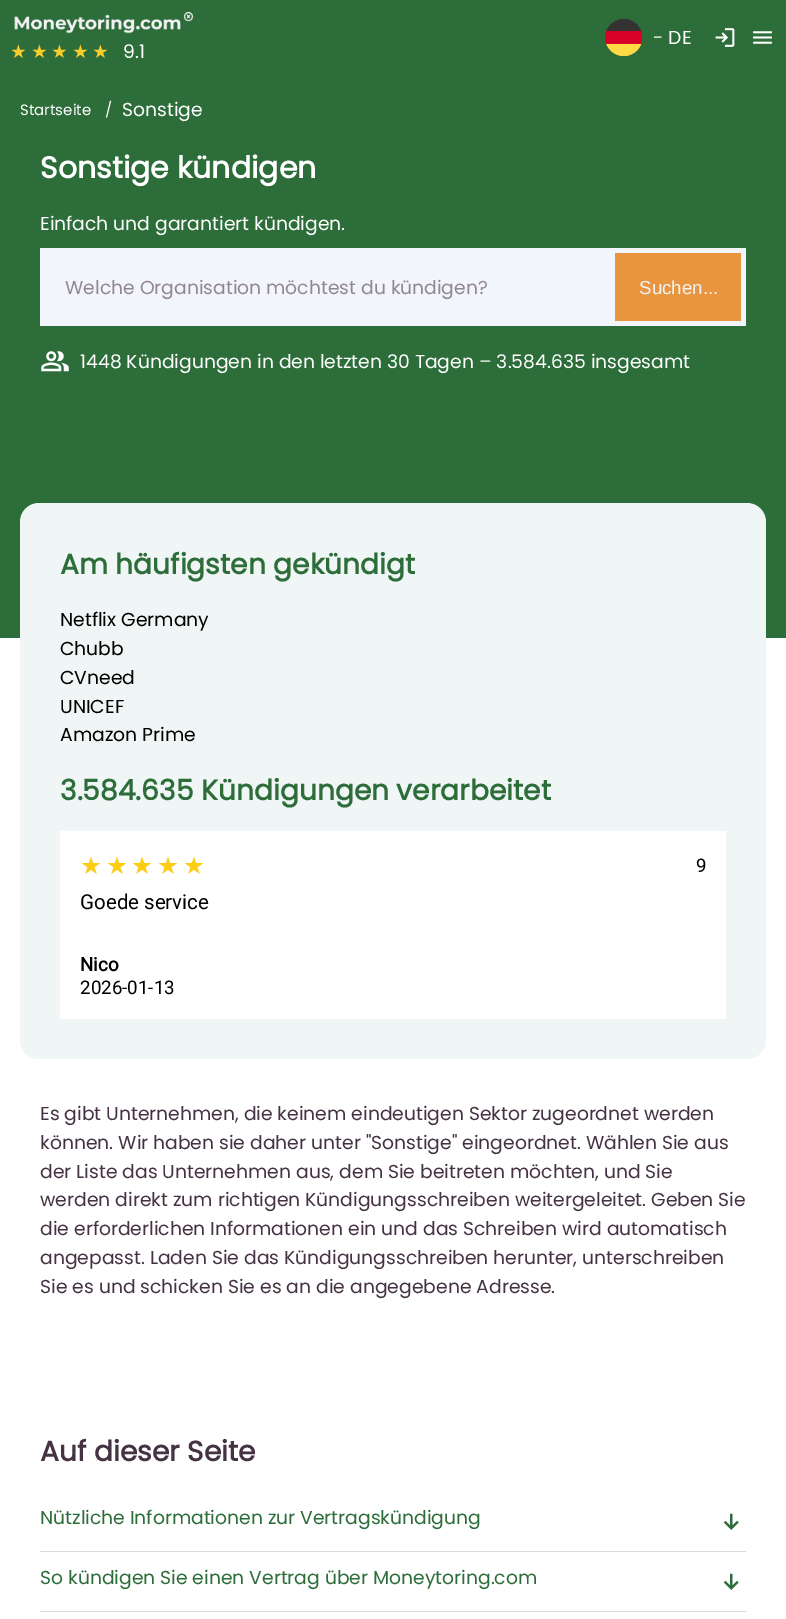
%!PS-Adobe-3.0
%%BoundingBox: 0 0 786 1619
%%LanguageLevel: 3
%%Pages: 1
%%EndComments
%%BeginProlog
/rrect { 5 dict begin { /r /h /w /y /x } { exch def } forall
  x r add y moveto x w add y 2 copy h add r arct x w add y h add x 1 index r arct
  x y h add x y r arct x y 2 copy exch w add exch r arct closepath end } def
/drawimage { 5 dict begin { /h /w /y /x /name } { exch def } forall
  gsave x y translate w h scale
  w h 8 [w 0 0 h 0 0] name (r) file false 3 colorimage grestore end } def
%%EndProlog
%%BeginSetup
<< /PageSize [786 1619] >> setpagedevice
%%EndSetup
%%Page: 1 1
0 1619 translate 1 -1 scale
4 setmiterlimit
1 setgray
0 0 786 1619 rectfill
0.173 0.427 0.227 setrgbcolor
0 0 786 638 rectfill
(images/1.raw) 605 19 38 37 drawimage
(images/2.raw) 715 28 20 19 drawimage
(images/3.raw) 753 31 19 13 drawimage
(images/4.raw) 14 11 180 23 drawimage
0.949 0.965 0.988 setrgbcolor
40 248 706 78 rectfill
0.914 0.584 0.247 setrgbcolor
615 253 126 68 rectfill
(images/5.raw) 41 351 28 21 drawimage
0.941 0.961 0.961 setrgbcolor
20 503 746 556 19 rrect fill
1 setgray
60 831 666 188 rectfill
0.875 0.847 0.875 setrgbcolor
40 1551 706 1 rectfill
(images/6.raw) 723 1513 16 17 drawimage
40 1611 706 1 rectfill
(images/6.raw) 723 1573 16 17 drawimage
/Poppins-Regular [18.75 0 0 -18.75 0 0] selectfont
1 setgray
653 44 moveto (- DE) show
/DejaVuSans-Regular [18.75 0 0 -18.75 0 0] selectfont
0.965 0.804 0.165 setrgbcolor
10 58 moveto 3.75 0 (★★★★★) ashow
/Poppins-Regular [18.75 0 0 -18.75 0 0] selectfont
1 setgray
123 58 moveto (9.1) show
/Poppins-Regular [15 0 0 -15 0 0] selectfont
20 115 moveto (Startseite) show
105 115 moveto (/) show
/Poppins-Regular [18.75 0 0 -18.75 0 0] selectfont
122 116 moveto (Sonstige) show
/Poppins-Bold [30 0 0 -30 0 0] selectfont
40 178 moveto (Sonstige kündigen) show
/Poppins-Regular [18.75 0 0 -18.75 0 0] selectfont
40 230 moveto (Einfach und garantiert kündigen.) show
0.573 0.529 0.569 setrgbcolor
65 294 moveto (Welche Organisation möchtest du kündigen?) show
/LiberationSans-Regular [18.75 0 0 -18.75 0 0] selectfont
0.953 0.953 0.957 setrgbcolor
639 294 moveto (Suchen...) show
/Poppins-Regular [18.75 0 0 -18.75 0 0] selectfont
1 setgray
80 368 moveto (1448 Kündigungen in den letzten 30 Tagen – 3.584.635 insgesamt) show
/Poppins-Bold [28.1 0 0 -28.1 0 0] selectfont
0.173 0.427 0.227 setrgbcolor
60 574 moveto (Am häufigsten gekündigt) show
/Poppins-Regular [18.75 0 0 -18.75 0 0] selectfont
0 setgray
60 626 moveto (Netflix Germany) show
60 655 moveto (Chubb) show
60 684 moveto (CVneed) show
60 713 moveto (UNICEF) show
60 741 moveto (Amazon Prime) show
/Poppins-Bold [28.1 0 0 -28.1 0 0] selectfont
0.173 0.427 0.227 setrgbcolor
60 800 moveto (3.584.635 Kündigungen verarbeitet) show
/DejaVuSans-Regular [24.5 0 0 -24.5 0 0] selectfont
0.984 0.804 0.082 setrgbcolor
80 874 moveto 3.75 0 (★★★★★) ashow
/Roboto-Regular [18.75 0 0 -18.75 0 0] selectfont
0 setgray
696 872 moveto (9) show
/Roboto-Regular [20.5 0 0 -20.5 0 0] selectfont
80 909 moveto (Goede service) show
/Roboto-Bold [18.75 0 0 -18.75 0 0] selectfont
80 971 moveto (Nico) show
/Roboto-Regular [18.75 0 0 -18.75 0 0] selectfont
80 994 moveto (2026-01-13) show
/Poppins-Regular [18.75 0 0 -18.75 0 0] selectfont
0.271 0.2 0.267 setrgbcolor
40 1120 moveto (Es gibt Unternehmen, die keinem eindeutigen Sektor zugeordnet werden) show
40 1149 moveto (können. Wir haben sie daher unter "Sonstige" eingeordnet. Wählen Sie aus) show
40 1178 moveto (der Liste das Unternehmen aus, dem Sie beitreten möchten, und Sie) show
40 1206 moveto (werden direkt zum richtigen Kündigungsschreiben weitergeleitet. Geben Sie) show
40 1235 moveto (die erforderlichen Informationen ein und das Schreiben wird automatisch) show
40 1264 moveto (angepasst. Laden Sie das Kündigungsschreiben herunter, unterschreiben) show
40 1293 moveto (Sie es und schicken Sie es an die angegebene Adresse.) show
/Poppins-Bold [28.1 0 0 -28.1 0 0] selectfont
40 1461 moveto (Auf dieser Seite) show
/Poppins-Regular [18.75 0 0 -18.75 0 0] selectfont
0.173 0.427 0.227 setrgbcolor
40 1524 moveto (Nützliche Informationen zur Vertragskündigung) show
40 1584 moveto (So kündigen Sie einen Vertrag über Moneytoring.com) show
showpage
%%EOF
